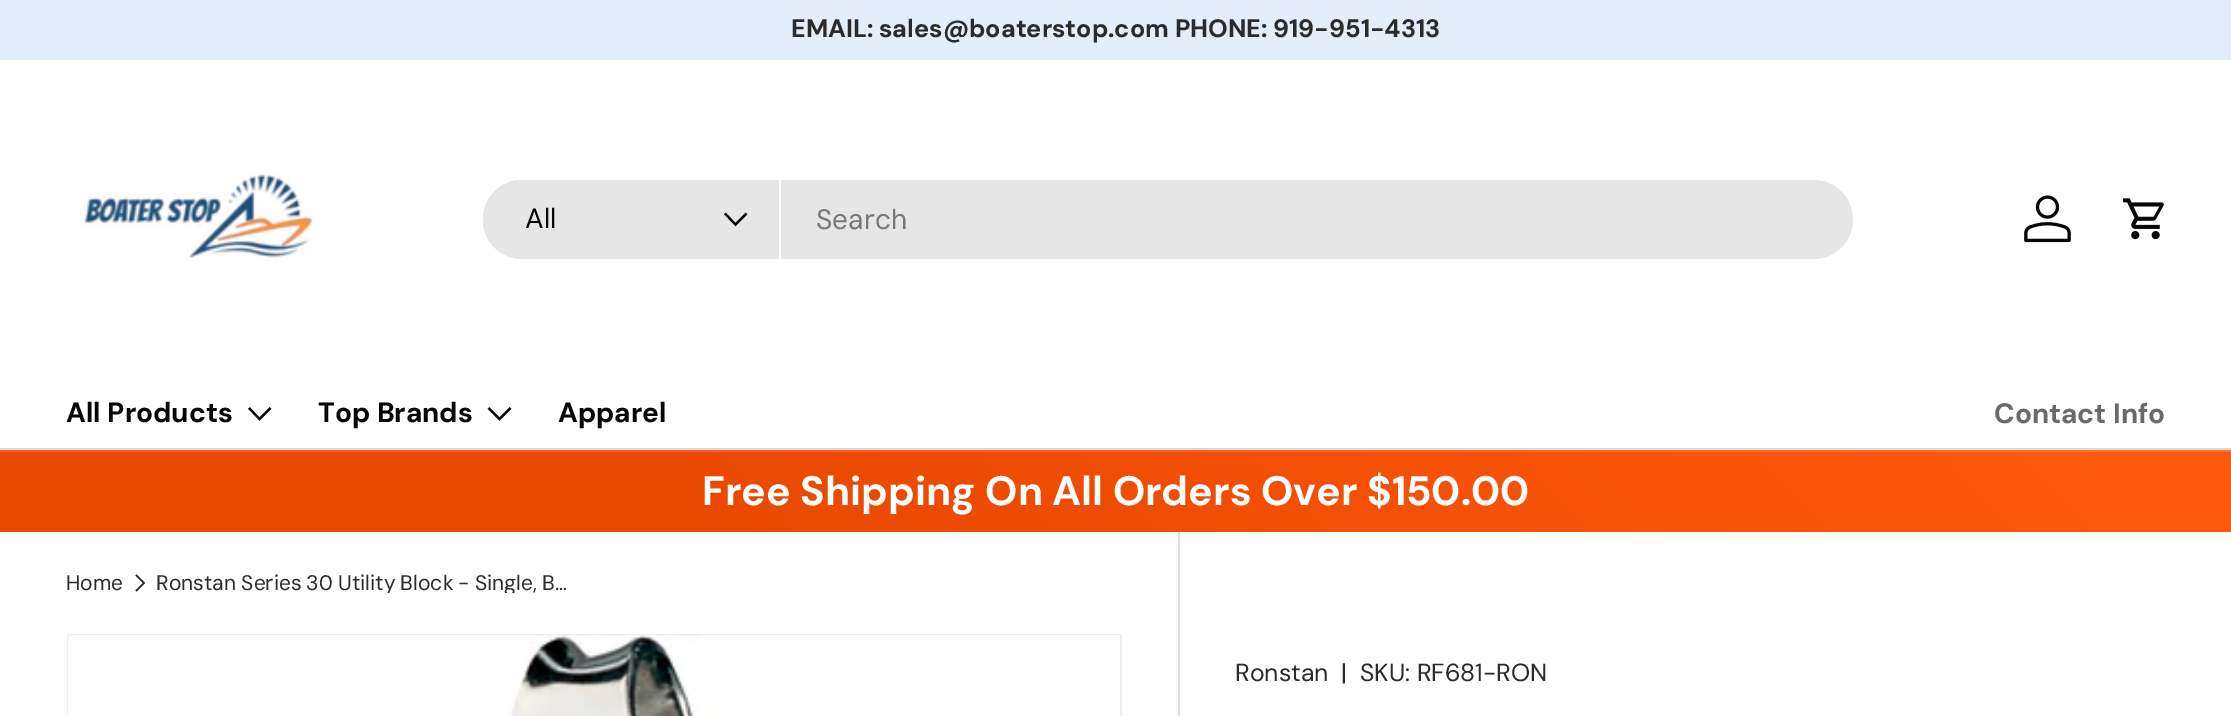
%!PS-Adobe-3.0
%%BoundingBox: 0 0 2231 716
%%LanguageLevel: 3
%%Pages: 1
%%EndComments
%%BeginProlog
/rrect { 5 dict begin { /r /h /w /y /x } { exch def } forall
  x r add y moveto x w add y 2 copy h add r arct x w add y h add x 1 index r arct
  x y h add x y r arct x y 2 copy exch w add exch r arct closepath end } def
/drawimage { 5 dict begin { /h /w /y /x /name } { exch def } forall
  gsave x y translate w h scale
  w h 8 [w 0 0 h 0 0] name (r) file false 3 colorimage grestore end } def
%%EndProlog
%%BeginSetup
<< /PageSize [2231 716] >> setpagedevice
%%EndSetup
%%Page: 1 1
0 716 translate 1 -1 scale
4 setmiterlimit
1 setgray
0 0 2231 716 rectfill
0.894 0.929 0.98 setrgbcolor
0 0 2231 60 rectfill
0.855 setgray
0 448 2231 2 rectfill
(images/1.raw) 80 171 233 91 drawimage
0.902 setgray
483 180 1370 79 39.5 rrect fill
newpath 522.5 180 moveto 781 180 lineto 781 259 lineto 522.5 259 lineto 500.5 259 483 241.5 483 219.5 curveto 483 197.5 500.5 180 522.5 180 curveto closepath fill
1 setgray
779 180 2 79 rectfill
0.027 setgray
2.2 setlinewidth
newpath 746.5 213.5 moveto 735.5 224.5 lineto 725 213.5 lineto stroke
(images/2.raw) 2024 195 47 48 drawimage
(images/3.raw) 2123 198 41 42 drawimage
newpath 270.5 408 moveto 259.5 419 lineto 249 408 lineto stroke
newpath 510.5 408 moveto 499.5 419 lineto 488.5 408 lineto stroke
gsave newpath 0 450 moveto 2231 450 lineto 2231 452 lineto 0 452 lineto closepath clip newpath
<< /ShadingType 2 /ColorSpace /DeviceRGB /Coords [518 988 1713 -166] /Extend [true true] /Function << /FunctionType 3 /Domain [0 1] /Functions [<< /FunctionType 2 /Domain [0 1] /C0 [0.929 0.392 0.149] /C1 [0.929 0.392 0.149] /N 1 >> << /FunctionType 2 /Domain [0 1] /C0 [0.929 0.392 0.149] /C1 [0.929 0.392 0.149] /N 1 >> << /FunctionType 2 /Domain [0 1] /C0 [0.929 0.392 0.149] /C1 [1 0.443 0.192] /N 1 >> << /FunctionType 2 /Domain [0 1] /C0 [1 0.443 0.192] /C1 [1 0.443 0.192] /N 1 >>] /Bounds [0.08 0.32 0.92] /Encode [0 1 0 1 0 1 0 1] >> >> shfill grestore
gsave newpath 0 452 moveto 2231 452 lineto 2231 532 lineto 0 532 lineto closepath clip newpath
<< /ShadingType 2 /ColorSpace /DeviceRGB /Coords [518 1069 1713 -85] /Extend [true true] /Function << /FunctionType 3 /Domain [0 1] /Functions [<< /FunctionType 2 /Domain [0 1] /C0 [0.918 0.286 0] /C1 [0.918 0.286 0] /N 1 >> << /FunctionType 2 /Domain [0 1] /C0 [0.918 0.286 0] /C1 [0.918 0.286 0] /N 1 >> << /FunctionType 2 /Domain [0 1] /C0 [0.918 0.286 0] /C1 [1 0.345 0.051] /N 1 >> << /FunctionType 2 /Domain [0 1] /C0 [1 0.345 0.051] /C1 [1 0.345 0.051] /N 1 >>] /Bounds [0.08 0.32 0.92] /Encode [0 1 0 1 0 1 0 1] >> >> shfill grestore
0.165 0.169 0.165 setrgbcolor
1.6 setlinewidth
newpath 136 575 moveto 144 583 lineto 136 591 lineto stroke
0.933 setgray
2 setlinewidth
68 635 1053 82 rectstroke
(images/4.raw) 68 635 1052 81 drawimage
0.875 setgray
1178 532 2 184 rectfill
/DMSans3-Bold [25.2 0 0 -25.2 0 0] selectfont
0.165 0.169 0.165 setrgbcolor
791 37 moveto (EMAIL: sales@boaterstop.com PHONE: 919-951-4313) show
/DMSans-Regular [28 0 0 -28 0 0] selectfont
0.027 setgray
525 228 moveto (All) show
0.467 setgray
816 229 moveto (Search) show
/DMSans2-Bold [28 0 0 -28 0 0] selectfont
0.027 setgray
66 422 moveto (All Products) show
318 422 moveto (Top Brands) show
558 422 moveto (Apparel) show
0.416 setgray
1994 423 moveto (Contact Info) show
/DMSans-Bold [41 0 0 -41 0 0] selectfont
1 setgray
702 505 moveto (Free Shipping On All Orders Over $150.00) show
/DMSans-Regular [21 0 0 -21 0 0] selectfont
0.165 0.169 0.165 setrgbcolor
66 590 moveto (Home) show
gsave
156 572 420 21 rectclip
156 590 moveto -0.5 0 32 (Ronstan Series 30 Utility Block - Single, B…) widthshow
grestore
/DMSans2-Regular [24.75 0 0 -24.75 0 0] selectfont
1235 681 moveto (Ronstan) show
1341 681 moveto (|) show
1360 681 moveto (SKU: RF681-RON) show
showpage
%%EOF
